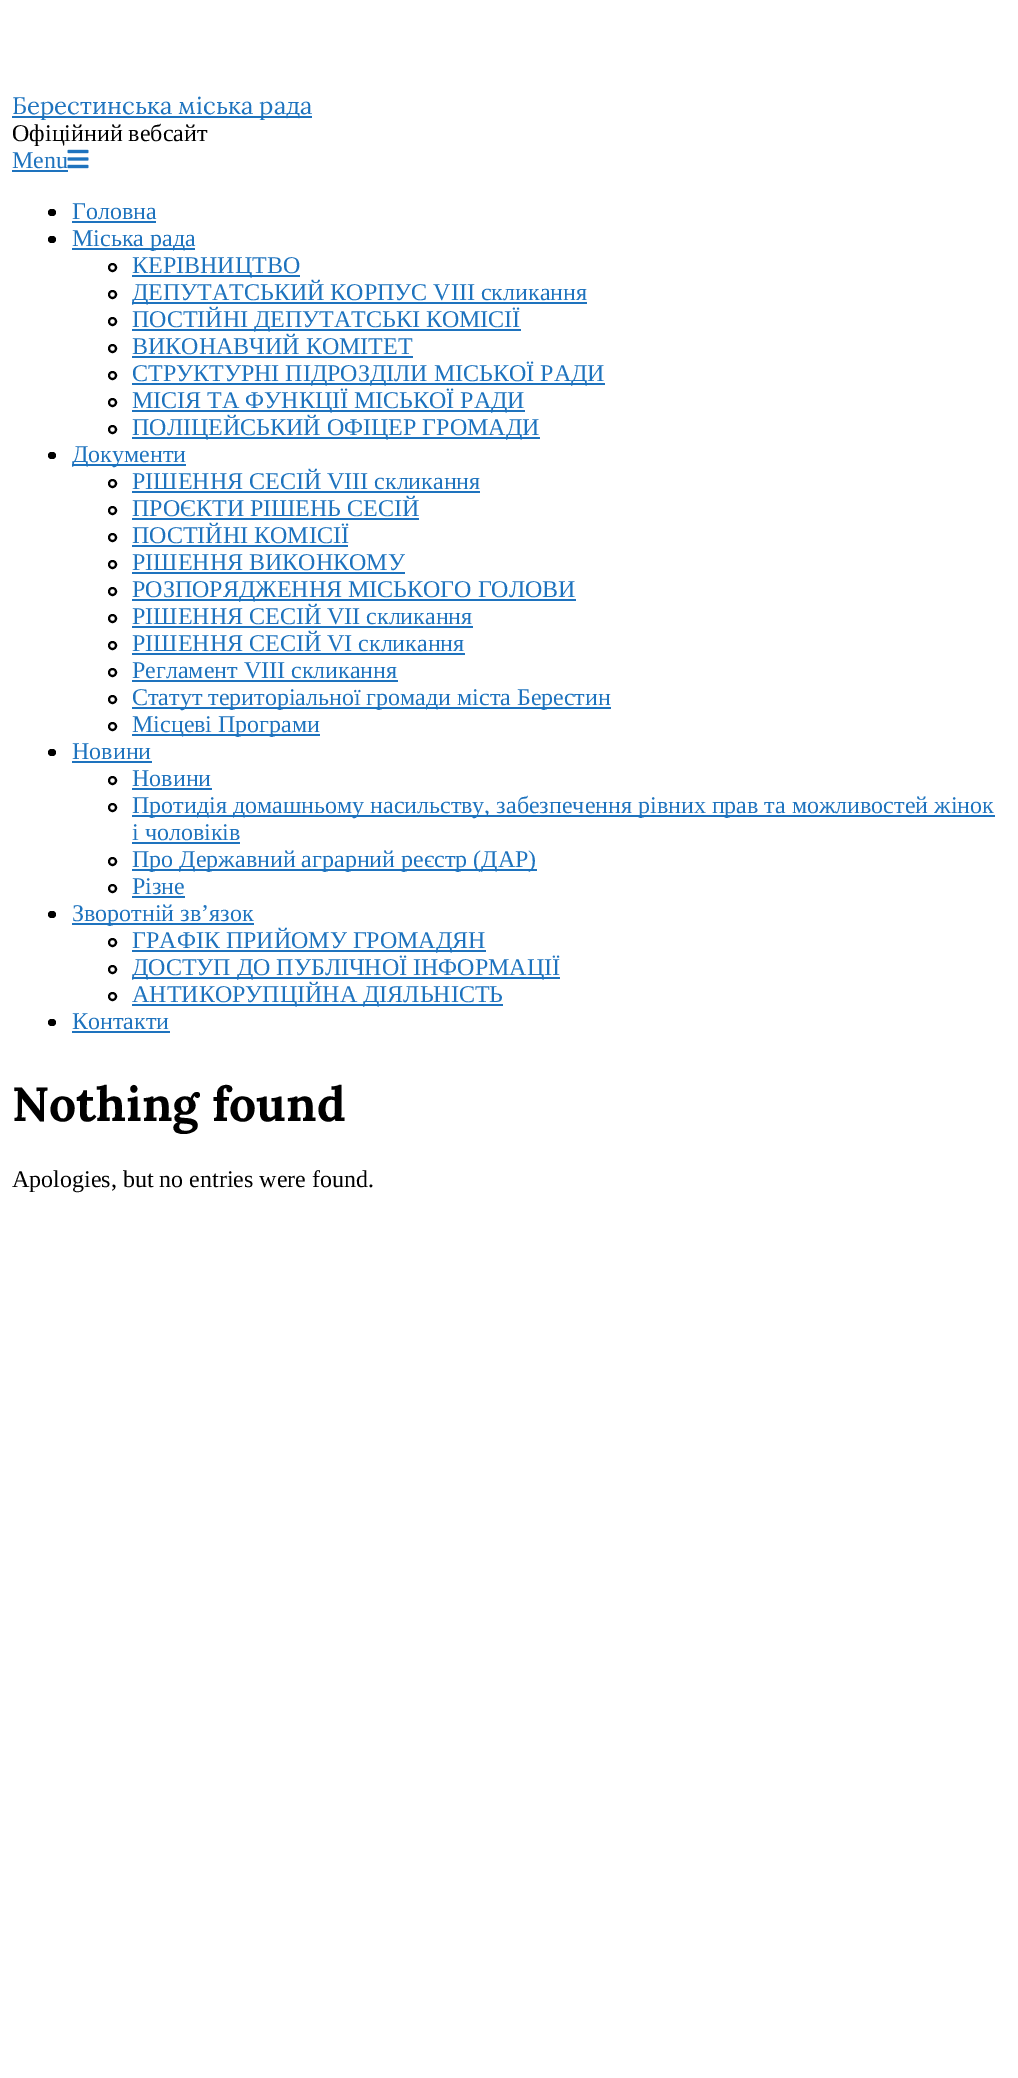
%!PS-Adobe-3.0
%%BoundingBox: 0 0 1018 2078
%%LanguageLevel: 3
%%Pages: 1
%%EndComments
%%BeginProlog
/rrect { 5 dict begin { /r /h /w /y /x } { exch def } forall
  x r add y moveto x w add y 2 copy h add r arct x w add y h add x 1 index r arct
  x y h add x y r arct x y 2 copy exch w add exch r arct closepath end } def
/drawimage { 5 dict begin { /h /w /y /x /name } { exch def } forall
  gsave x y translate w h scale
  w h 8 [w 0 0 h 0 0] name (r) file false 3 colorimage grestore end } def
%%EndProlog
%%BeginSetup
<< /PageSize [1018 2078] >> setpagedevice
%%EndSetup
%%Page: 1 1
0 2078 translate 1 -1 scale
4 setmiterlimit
1 setgray
0 0 1018 2078 rectfill
0.118 0.451 0.745 setrgbcolor
12 116 300 2 rectfill
12 170 56 2 rectfill
0 setgray
48 209 8 7 3.5 rrect fill
0.118 0.451 0.745 setrgbcolor
72 221 84 2 rectfill
0 setgray
48 236 8 7 3.5 rrect fill
0.118 0.451 0.745 setrgbcolor
72 248 123 2 rectfill
0 setgray
2 setlinewidth
newpath 112.5 267.5 3.5 0 360 arc closepath stroke
0.118 0.451 0.745 setrgbcolor
132 275 168 2 rectfill
0 setgray
newpath 112.5 294.5 3.5 0 360 arc closepath stroke
0.118 0.451 0.745 setrgbcolor
132 302 455 2 rectfill
0 setgray
newpath 112.5 321.5 3.5 0 360 arc closepath stroke
0.118 0.451 0.745 setrgbcolor
132 329 389 2 rectfill
0 setgray
newpath 112.5 348.5 3.5 0 360 arc closepath stroke
0.118 0.451 0.745 setrgbcolor
132 356 281 2 rectfill
0 setgray
newpath 112.5 375.5 3.5 0 360 arc closepath stroke
0.118 0.451 0.745 setrgbcolor
132 383 473 2 rectfill
0 setgray
newpath 112.5 402.5 3.5 0 360 arc closepath stroke
0.118 0.451 0.745 setrgbcolor
132 410 393 2 rectfill
0 setgray
newpath 112.5 429.5 3.5 0 360 arc closepath stroke
0.118 0.451 0.745 setrgbcolor
132 437 408 2 rectfill
0 setgray
48 452 8 7 3.5 rrect fill
0.118 0.451 0.745 setrgbcolor
72 464 114 2 rectfill
0 setgray
newpath 112.5 483.5 3.5 0 360 arc closepath stroke
0.118 0.451 0.745 setrgbcolor
132 491 348 2 rectfill
0 setgray
newpath 112.5 510.5 3.5 0 360 arc closepath stroke
0.118 0.451 0.745 setrgbcolor
132 518 287 2 rectfill
0 setgray
newpath 112.5 537.5 3.5 0 360 arc closepath stroke
0.118 0.451 0.745 setrgbcolor
132 545 216 2 rectfill
0 setgray
newpath 112.5 564.5 3.5 0 360 arc closepath stroke
0.118 0.451 0.745 setrgbcolor
132 572 273 2 rectfill
0 setgray
newpath 112.5 591.5 3.5 0 360 arc closepath stroke
0.118 0.451 0.745 setrgbcolor
132 599 444 2 rectfill
0 setgray
newpath 112.5 618.5 3.5 0 360 arc closepath stroke
0.118 0.451 0.745 setrgbcolor
132 626 341 2 rectfill
0 setgray
newpath 112.5 645.5 3.5 0 360 arc closepath stroke
0.118 0.451 0.745 setrgbcolor
132 653 333 2 rectfill
0 setgray
newpath 112.5 672.5 3.5 0 360 arc closepath stroke
0.118 0.451 0.745 setrgbcolor
132 680 266 2 rectfill
0 setgray
newpath 112.5 699.5 3.5 0 360 arc closepath stroke
0.118 0.451 0.745 setrgbcolor
132 707 479 2 rectfill
0 setgray
newpath 112.5 726.5 3.5 0 360 arc closepath stroke
0.118 0.451 0.745 setrgbcolor
132 734 188 2 rectfill
0 setgray
48 749 8 7 3.5 rrect fill
0.118 0.451 0.745 setrgbcolor
72 761 80 2 rectfill
0 setgray
newpath 112.5 780.5 3.5 0 360 arc closepath stroke
0.118 0.451 0.745 setrgbcolor
132 788 80 2 rectfill
0 setgray
newpath 112.5 807.5 3.5 0 360 arc closepath stroke
0.118 0.451 0.745 setrgbcolor
132 815 863 2 rectfill
132 842 108 2 rectfill
0 setgray
newpath 112.5 861.5 3.5 0 360 arc closepath stroke
0.118 0.451 0.745 setrgbcolor
132 869 405 2 rectfill
0 setgray
newpath 112.5 888.5 3.5 0 360 arc closepath stroke
0.118 0.451 0.745 setrgbcolor
132 896 53 2 rectfill
0 setgray
48 911 8 7 3.5 rrect fill
0.118 0.451 0.745 setrgbcolor
72 923 182 2 rectfill
0 setgray
newpath 112.5 942.5 3.5 0 360 arc closepath stroke
0.118 0.451 0.745 setrgbcolor
132 950 354 2 rectfill
0 setgray
newpath 112.5 969.5 3.5 0 360 arc closepath stroke
0.118 0.451 0.745 setrgbcolor
132 977 428 2 rectfill
0 setgray
newpath 112.5 996.5 3.5 0 360 arc closepath stroke
0.118 0.451 0.745 setrgbcolor
132 1004 371 2 rectfill
0 setgray
48 1019 8 7 3.5 rrect fill
0.118 0.451 0.745 setrgbcolor
72 1031 98 2 rectfill
/Lora-Regular [24 0 0 -24 0 0] selectfont
12 114 moveto (Берестинська міська рада) show
/LiberationSerif-Regular [24 0 0 -24 0 0] selectfont
0 setgray
12 141 moveto (Офіційний вебсайт) show
0.118 0.451 0.745 setrgbcolor
12 168 moveto (Menu) show
(images/1.raw) 67 149 22 20 drawimage
72 219 moveto (Головна) show
72 246 moveto (Міська рада) show
132 273 moveto (КЕРІВНИЦТВО) show
132 300 moveto (ДЕПУТАТСЬКИЙ КОРПУС VIІI скликання) show
132 327 moveto (ПОСТІЙНІ ДЕПУТАТСЬКІ КОМІСІЇ) show
132 354 moveto (ВИКОНАВЧИЙ КОМІТЕТ) show
132 381 moveto (СТРУКТУРНІ ПІДРОЗДІЛИ МІСЬКОЇ РАДИ) show
132 408 moveto (МІСІЯ ТА ФУНКЦІЇ МІСЬКОЇ РАДИ) show
132 435 moveto (ПОЛІЦЕЙСЬКИЙ ОФІЦЕР ГРОМАДИ) show
72 462 moveto (Документи) show
132 489 moveto (РІШЕННЯ СЕСІЙ VIІI скликання) show
132 516 moveto (ПРОЄКТИ РІШЕНЬ СЕСІЙ) show
132 543 moveto (ПОСТІЙНІ КОМІСІЇ) show
132 570 moveto (РІШЕННЯ ВИКОНКОМУ) show
132 597 moveto (РОЗПОРЯДЖЕННЯ МІСЬКОГО ГОЛОВИ) show
132 624 moveto (РІШЕННЯ СЕСІЙ VII скликання) show
132 651 moveto (РІШЕННЯ СЕСІЙ VI скликання) show
132 678 moveto (Регламент VIІI скликання) show
132 705 moveto (Статут територіальної громади міста Берестин) show
132 732 moveto (Місцеві Програми) show
72 759 moveto (Новини) show
132 786 moveto (Новини) show
132 813 moveto (Протидія домашньому насильству, забезпечення рівних прав та можливостей жінок) show
132 840 moveto (і чоловіків) show
132 867 moveto (Про Державний аграрний реєстр \(ДАР\)) show
132 894 moveto (Різне) show
72 921 moveto (Зворотній зв’язок) show
132 948 moveto (ГРАФІК ПРИЙОМУ ГРОМАДЯН) show
132 975 moveto (ДОСТУП ДО ПУБЛІЧНОЇ ІНФОРМАЦІЇ) show
132 1002 moveto (АНТИКОРУПЦІЙНА ДІЯЛЬНІСТЬ) show
72 1029 moveto (Контакти) show
/Lora-Bold [48 0 0 -48 0 0] selectfont
0 setgray
12 1121 moveto (Nothing found) show
/LiberationSerif-Regular [24 0 0 -24 0 0] selectfont
12 1187 moveto (Apologies, but no entries were found.) show
showpage
%%EOF
